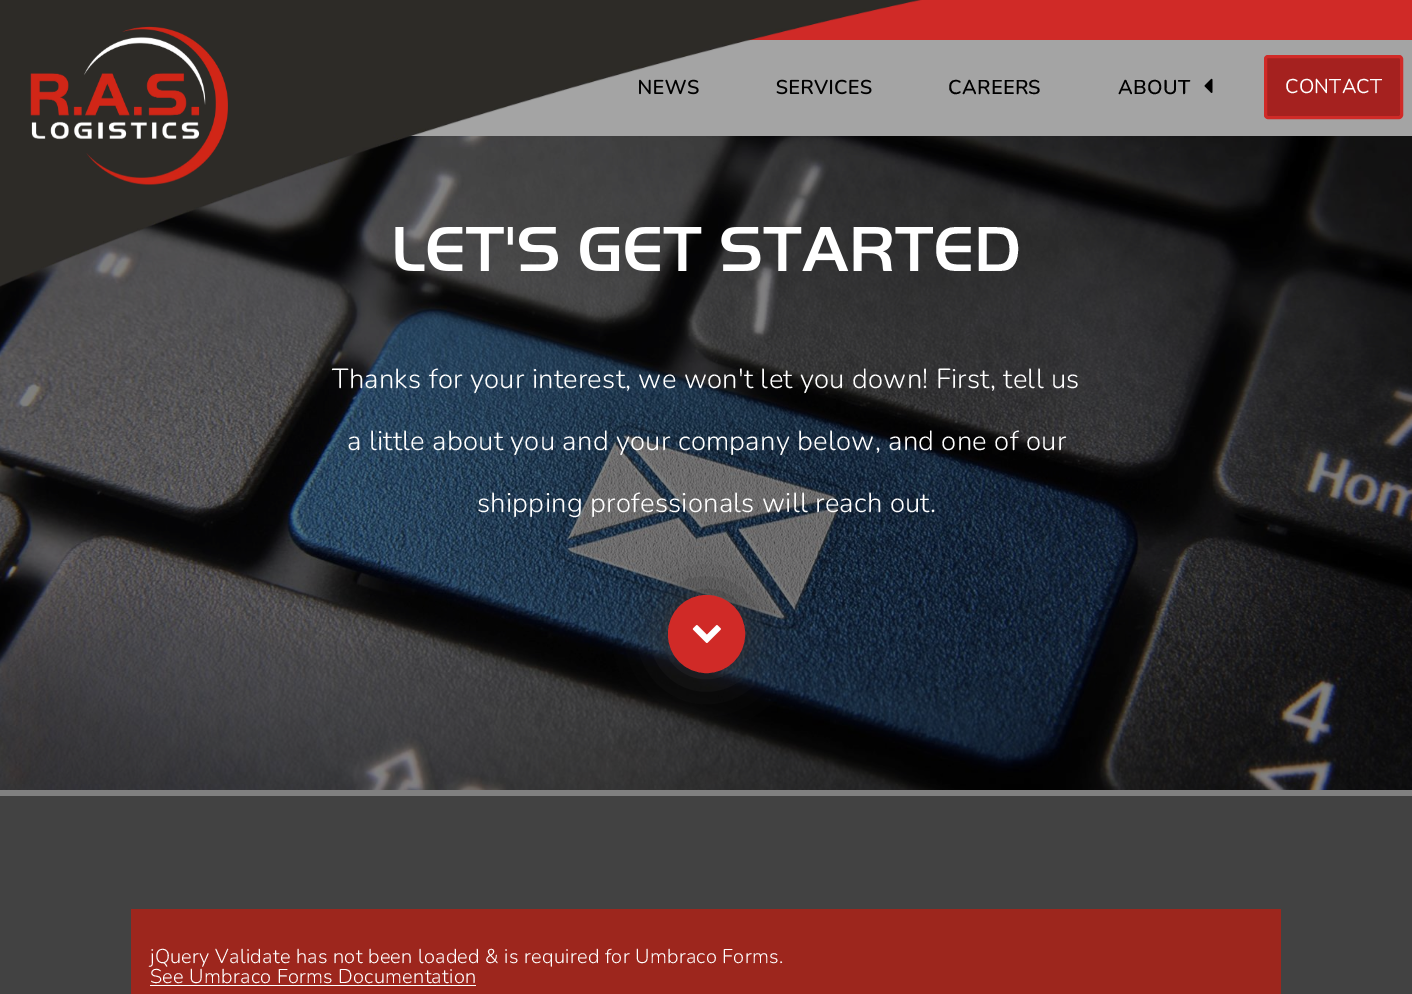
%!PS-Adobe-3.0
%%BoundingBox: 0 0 1412 994
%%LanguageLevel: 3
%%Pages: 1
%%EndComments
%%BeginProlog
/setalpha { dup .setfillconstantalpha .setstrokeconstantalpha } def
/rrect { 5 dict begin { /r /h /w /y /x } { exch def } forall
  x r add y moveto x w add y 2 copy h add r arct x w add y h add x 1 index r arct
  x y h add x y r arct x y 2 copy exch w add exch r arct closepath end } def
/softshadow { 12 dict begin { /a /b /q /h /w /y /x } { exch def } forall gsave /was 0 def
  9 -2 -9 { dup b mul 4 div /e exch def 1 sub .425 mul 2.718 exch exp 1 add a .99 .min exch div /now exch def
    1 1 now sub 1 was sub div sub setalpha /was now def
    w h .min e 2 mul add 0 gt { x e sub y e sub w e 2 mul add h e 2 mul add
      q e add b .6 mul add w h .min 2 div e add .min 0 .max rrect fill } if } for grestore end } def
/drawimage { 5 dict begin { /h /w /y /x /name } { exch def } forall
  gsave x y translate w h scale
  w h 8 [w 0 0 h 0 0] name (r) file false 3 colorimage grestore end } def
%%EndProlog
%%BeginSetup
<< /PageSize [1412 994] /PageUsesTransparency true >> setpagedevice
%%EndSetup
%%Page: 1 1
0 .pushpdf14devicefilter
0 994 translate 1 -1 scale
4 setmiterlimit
0.502 setgray
0 0 1412 994 rectfill
0.816 0.165 0.153 setrgbcolor
747 0 665 40 rectfill
0.643 setgray
408 40 1004 96 rectfill
(images/3.raw) 1204 78 9 15 drawimage
0.647 0.129 0.122 setrgbcolor
1265.5 56.5 136 61 2.5 rrect gsave fill grestore
0.816 0.165 0.153 setrgbcolor
3 setlinewidth
stroke
(images/4.raw) 0 136 1412 654 drawimage
0.2 setgray
668 595 77 78 38.5 25 1 softshadow
0.816 0.165 0.153 setrgbcolor
669.5 596.5 74 75 37 rrect gsave fill grestore
stroke
(images/5.raw) 692 625 29 18 drawimage
0.259 setgray
0 796 1412 198 rectfill
0.616 0.149 0.114 setrgbcolor
131 909 1150 85 rectfill
1 setgray
150 985 326 1 rectfill
/Nunito-SemiBold [20 0 0 -20 0 0] selectfont
0 setgray
637 94 moveto 0.25 0 (NEWS) ashow
776 94 moveto 0.25 0 (SERVICES) ashow
948 94 moveto 0.25 0 (CAREERS) ashow
1118 94 moveto 0.25 0 (ABOUT) ashow
/Nunito-Regular [20 0 0 -20 0 0] selectfont
1 setgray
1285 93 moveto 0.25 0 (CONTACT) ashow
/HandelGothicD-Medium [66 0 0 -66 0 0] selectfont
391 271 moveto 0.5 0 (LET'S GET STARTED) ashow
(images/1.raw) 0 0 922 287 drawimage
(images/2.raw) 30 26 198 159 drawimage
/Nunito-Light [27.5 0 0 -27.5 0 0] selectfont
332 388 moveto 0.25 0 (Thanks for your interest, we won't let you down! First, tell us) ashow
347 450 moveto 0.25 0 (a little about you and your company below, and one of our) ashow
477 512 moveto 0.25 0 (shipping professionals will reach out.) ashow
/Nunito-Light [20 0 0 -20 0 0] selectfont
150 963 moveto 0.25 0 (jQuery Validate has not been loaded & is required for Umbraco Forms.) ashow
150 983 moveto 0.25 0 (See Umbraco Forms Documentation) ashow
.poppdf14devicefilter showpage
%%EOF
